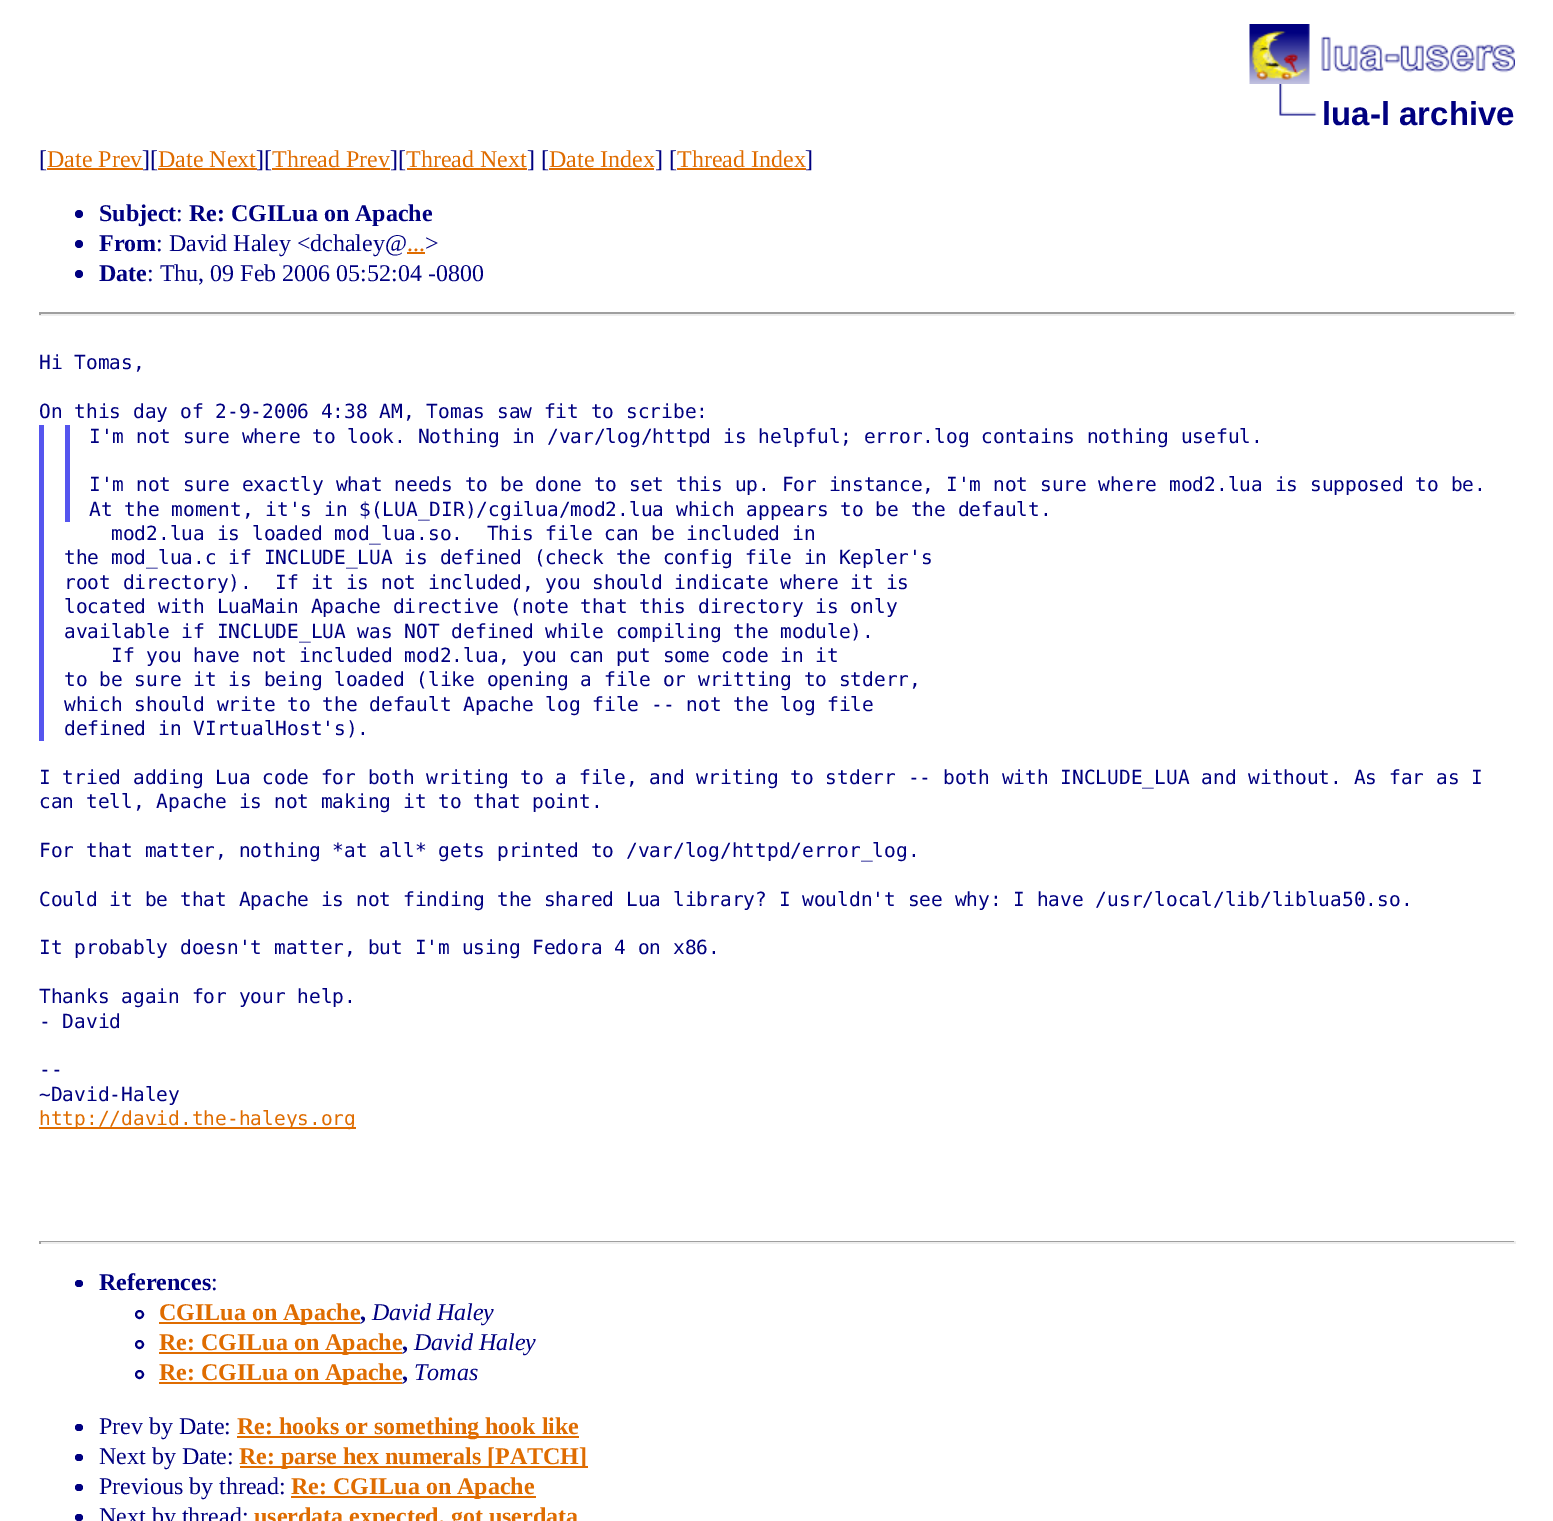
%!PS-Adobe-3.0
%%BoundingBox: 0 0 1553 1521
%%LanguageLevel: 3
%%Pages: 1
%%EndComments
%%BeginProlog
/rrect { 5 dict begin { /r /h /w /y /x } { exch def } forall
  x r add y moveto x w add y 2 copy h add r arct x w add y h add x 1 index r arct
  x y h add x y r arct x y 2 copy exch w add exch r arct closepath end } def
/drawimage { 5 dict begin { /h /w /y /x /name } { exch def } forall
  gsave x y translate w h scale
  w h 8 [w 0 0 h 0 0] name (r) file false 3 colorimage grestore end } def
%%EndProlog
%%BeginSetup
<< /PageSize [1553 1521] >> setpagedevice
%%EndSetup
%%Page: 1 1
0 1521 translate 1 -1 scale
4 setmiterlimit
1 setgray
0 0 1553 1521 rectfill
(images/1.raw) 1249 24 266 60 drawimage
(images/2.raw) 1279 84 38 32 drawimage
0.875 0.424 0 setrgbcolor
47 168 96 2 rectfill
158 168 99 2 rectfill
272 168 118 2 rectfill
407 168 120 2 rectfill
549 168 105 2 rectfill
677 168 129 2 rectfill
0 0 0.502 setrgbcolor
newpath 79 214 4 0 360 arc closepath fill
newpath 79 244 4 0 360 arc closepath fill
0.875 0.424 0 setrgbcolor
407 252 18 2 rectfill
0 0 0.502 setrgbcolor
newpath 79 274 4 0 360 arc closepath fill
0.624 setgray
39 312 1476 2 rectfill
0.933 setgray
1514 312 2 3 rectfill
39 314 1476 2 rectfill
0.624 setgray
39 312 2 3 rectfill
0.333 0.333 0.933 setrgbcolor
39 425 5 316 rectfill
65 425 5 97 rectfill
0.875 0.424 0 setrgbcolor
39 1127 317 2 rectfill
0.624 setgray
39 1241 1476 1 rectfill
0.933 setgray
1514 1241 2 3 rectfill
39 1242 1476 2 rectfill
0.624 setgray
39 1241 2 3 rectfill
0 0 0.502 setrgbcolor
75 1280 8 7 3.5 rrect fill
2 setlinewidth
newpath 139.5 1314.5 3.5 0 360 arc closepath stroke
0.875 0.424 0 setrgbcolor
159 1322 201 2 rectfill
0 0 0.502 setrgbcolor
newpath 139.5 1344.5 3.5 0 360 arc closepath stroke
0.875 0.424 0 setrgbcolor
159 1352 243 2 rectfill
0 0 0.502 setrgbcolor
newpath 139.5 1374.5 3.5 0 360 arc closepath stroke
0.875 0.424 0 setrgbcolor
159 1382 243 2 rectfill
0 0 0.502 setrgbcolor
75 1424 8 7 3.5 rrect fill
0.875 0.424 0 setrgbcolor
237 1436 342 2 rectfill
0 0 0.502 setrgbcolor
75 1454 8 7 3.5 rrect fill
0.875 0.424 0 setrgbcolor
240 1466 348 2 rectfill
0 0 0.502 setrgbcolor
75 1484 8 7 3.5 rrect fill
0.875 0.424 0 setrgbcolor
291 1496 245 2 rectfill
0 0 0.502 setrgbcolor
75 1514 8 7 3.5 rrect fill
/LiberationSans-Bold [33 0 0 -33 0 0] selectfont
1322 125 moveto (lua-l archive) show
/LiberationSerif-Regular [24 0 0 -24 0 0] selectfont
39 167 moveto ([) show
0.875 0.424 0 setrgbcolor
47 167 moveto (Date Prev) show
0 0 0.502 setrgbcolor
142 167 moveto (][) show
0.875 0.424 0 setrgbcolor
158 167 moveto (Date Next) show
0 0 0.502 setrgbcolor
256 167 moveto (][) show
0.875 0.424 0 setrgbcolor
272 167 moveto (Thread Prev) show
0 0 0.502 setrgbcolor
390 167 moveto (][) show
0.875 0.424 0 setrgbcolor
406 167 moveto (Thread Next) show
0 0 0.502 setrgbcolor
527 167 moveto (] [) show
0.875 0.424 0 setrgbcolor
549 167 moveto (Date Index) show
0 0 0.502 setrgbcolor
655 167 moveto (] [) show
0.875 0.424 0 setrgbcolor
677 167 moveto (Thread Index) show
0 0 0.502 setrgbcolor
805 167 moveto (]) show
/LiberationSerif-Bold [24 0 0 -24 0 0] selectfont
99 221 moveto (Subject) show
/LiberationSerif-Regular [24 0 0 -24 0 0] selectfont
176 221 moveto (:) show
/LiberationSerif-Bold [24 0 0 -24 0 0] selectfont
189 221 moveto (Re: CGILua on Apache) show
99 251 moveto (From) show
/LiberationSerif-Regular [24 0 0 -24 0 0] selectfont
156 251 moveto (: David Haley <dchaley@) show
425 251 moveto (>) show
0.875 0.424 0 setrgbcolor
407 251 moveto (...) show
/LiberationSerif-Bold [24 0 0 -24 0 0] selectfont
0 0 0.502 setrgbcolor
99 281 moveto (Date) show
/LiberationSerif-Regular [24 0 0 -24 0 0] selectfont
147 281 moveto (: Thu, 09 Feb 2006 05:52:04 -0800) show
/DejaVuSansMono-Regular [19.5 0 0 -19.5 0 0] selectfont
39 369 moveto (Hi Tomas,) show
39 418 moveto (On this day of 2-9-2006 4:38 AM, Tomas saw fit to scribe:) show
89 443 moveto (I'm not sure where to look. Nothing in /var/log/httpd is helpful; error.log contains nothing useful.) show
89 491 moveto (I'm not sure exactly what needs to be done to set this up. For instance, I'm not sure where mod2.lua is supposed to be.) show
89 516 moveto (At the moment, it's in $\(LUA_DIR\)/cgilua/mod2.lua which appears to be the default.) show
111 540 moveto (mod2.lua is loaded mod_lua.so.  This file can be included in) show
64 564 moveto (the mod_lua.c if INCLUDE_LUA is defined \(check the config file in Kepler's) show
64 589 moveto (root directory\).  If it is not included, you should indicate where it is) show
64 613 moveto (located with LuaMain Apache directive \(note that this directory is only) show
64 638 moveto (available if INCLUDE_LUA was NOT defined while compiling the module\).) show
111 662 moveto (If you have not included mod2.lua, you can put some code in it) show
64 686 moveto (to be sure it is being loaded \(like opening a file or writting to stderr,) show
64 711 moveto (which should write to the default Apache log file -- not the log file) show
64 735 moveto (defined in VIrtualHost's\).) show
39 784 moveto (I tried adding Lua code for both writing to a file, and writing to stderr -- both with INCLUDE_LUA and without. As far as I) show
39 808 moveto (can tell, Apache is not making it to that point.) show
39 857 moveto (For that matter, nothing *at all* gets printed to /var/log/httpd/error_log.) show
39 906 moveto (Could it be that Apache is not finding the shared Lua library? I wouldn't see why: I have /usr/local/lib/liblua50.so.) show
39 954 moveto (It probably doesn't matter, but I'm using Fedora 4 on x86.) show
39 1003 moveto (Thanks again for your help.) show
39 1028 moveto (- David) show
39 1076 moveto (--) show
39 1101 moveto (~David-Haley) show
0.875 0.424 0 setrgbcolor
39 1125 moveto (http://david.the-haleys.org) show
/LiberationSerif-Bold [24 0 0 -24 0 0] selectfont
0 0 0.502 setrgbcolor
99 1290 moveto (References) show
/LiberationSerif-Regular [24 0 0 -24 0 0] selectfont
211 1290 moveto (:) show
/LiberationSerif-Bold [24 0 0 -24 0 0] selectfont
0.875 0.424 0 setrgbcolor
159 1320 moveto (CGILua on Apache) show
/LiberationSerif-Italic [24 0 0 -24 0 0] selectfont
0 0 0.502 setrgbcolor
372 1320 moveto (David Haley) show
/LiberationSerif-Bold [24 0 0 -24 0 0] selectfont
360 1320 moveto (,) show
0.875 0.424 0 setrgbcolor
159 1350 moveto (Re: CGILua on Apache) show
/LiberationSerif-Italic [24 0 0 -24 0 0] selectfont
0 0 0.502 setrgbcolor
414 1350 moveto (David Haley) show
/LiberationSerif-Bold [24 0 0 -24 0 0] selectfont
402 1350 moveto (,) show
0.875 0.424 0 setrgbcolor
159 1380 moveto (Re: CGILua on Apache) show
/LiberationSerif-Italic [24 0 0 -24 0 0] selectfont
0 0 0.502 setrgbcolor
414 1380 moveto (Tomas) show
/LiberationSerif-Bold [24 0 0 -24 0 0] selectfont
402 1380 moveto (,) show
/LiberationSerif-Regular [24 0 0 -24 0 0] selectfont
99 1434 moveto (Prev by Date:) show
/LiberationSerif-Bold [24 0 0 -24 0 0] selectfont
0.875 0.424 0 setrgbcolor
237 1434 moveto (Re: hooks or something hook like) show
/LiberationSerif-Regular [24 0 0 -24 0 0] selectfont
0 0 0.502 setrgbcolor
99 1464 moveto (Next by Date:) show
/LiberationSerif-Bold [24 0 0 -24 0 0] selectfont
0.875 0.424 0 setrgbcolor
239 1464 moveto (Re: parse hex numerals [PATCH]) show
/LiberationSerif-Regular [24 0 0 -24 0 0] selectfont
0 0 0.502 setrgbcolor
99 1494 moveto (Previous by thread:) show
/LiberationSerif-Bold [24 0 0 -24 0 0] selectfont
0.875 0.424 0 setrgbcolor
291 1494 moveto (Re: CGILua on Apache) show
/LiberationSerif-Regular [24 0 0 -24 0 0] selectfont
0 0 0.502 setrgbcolor
99 1524 moveto (Next by thread:) show
/LiberationSerif-Bold [24 0 0 -24 0 0] selectfont
0.875 0.424 0 setrgbcolor
254 1524 moveto (userdata expected, got userdata) show
showpage
%%EOF
